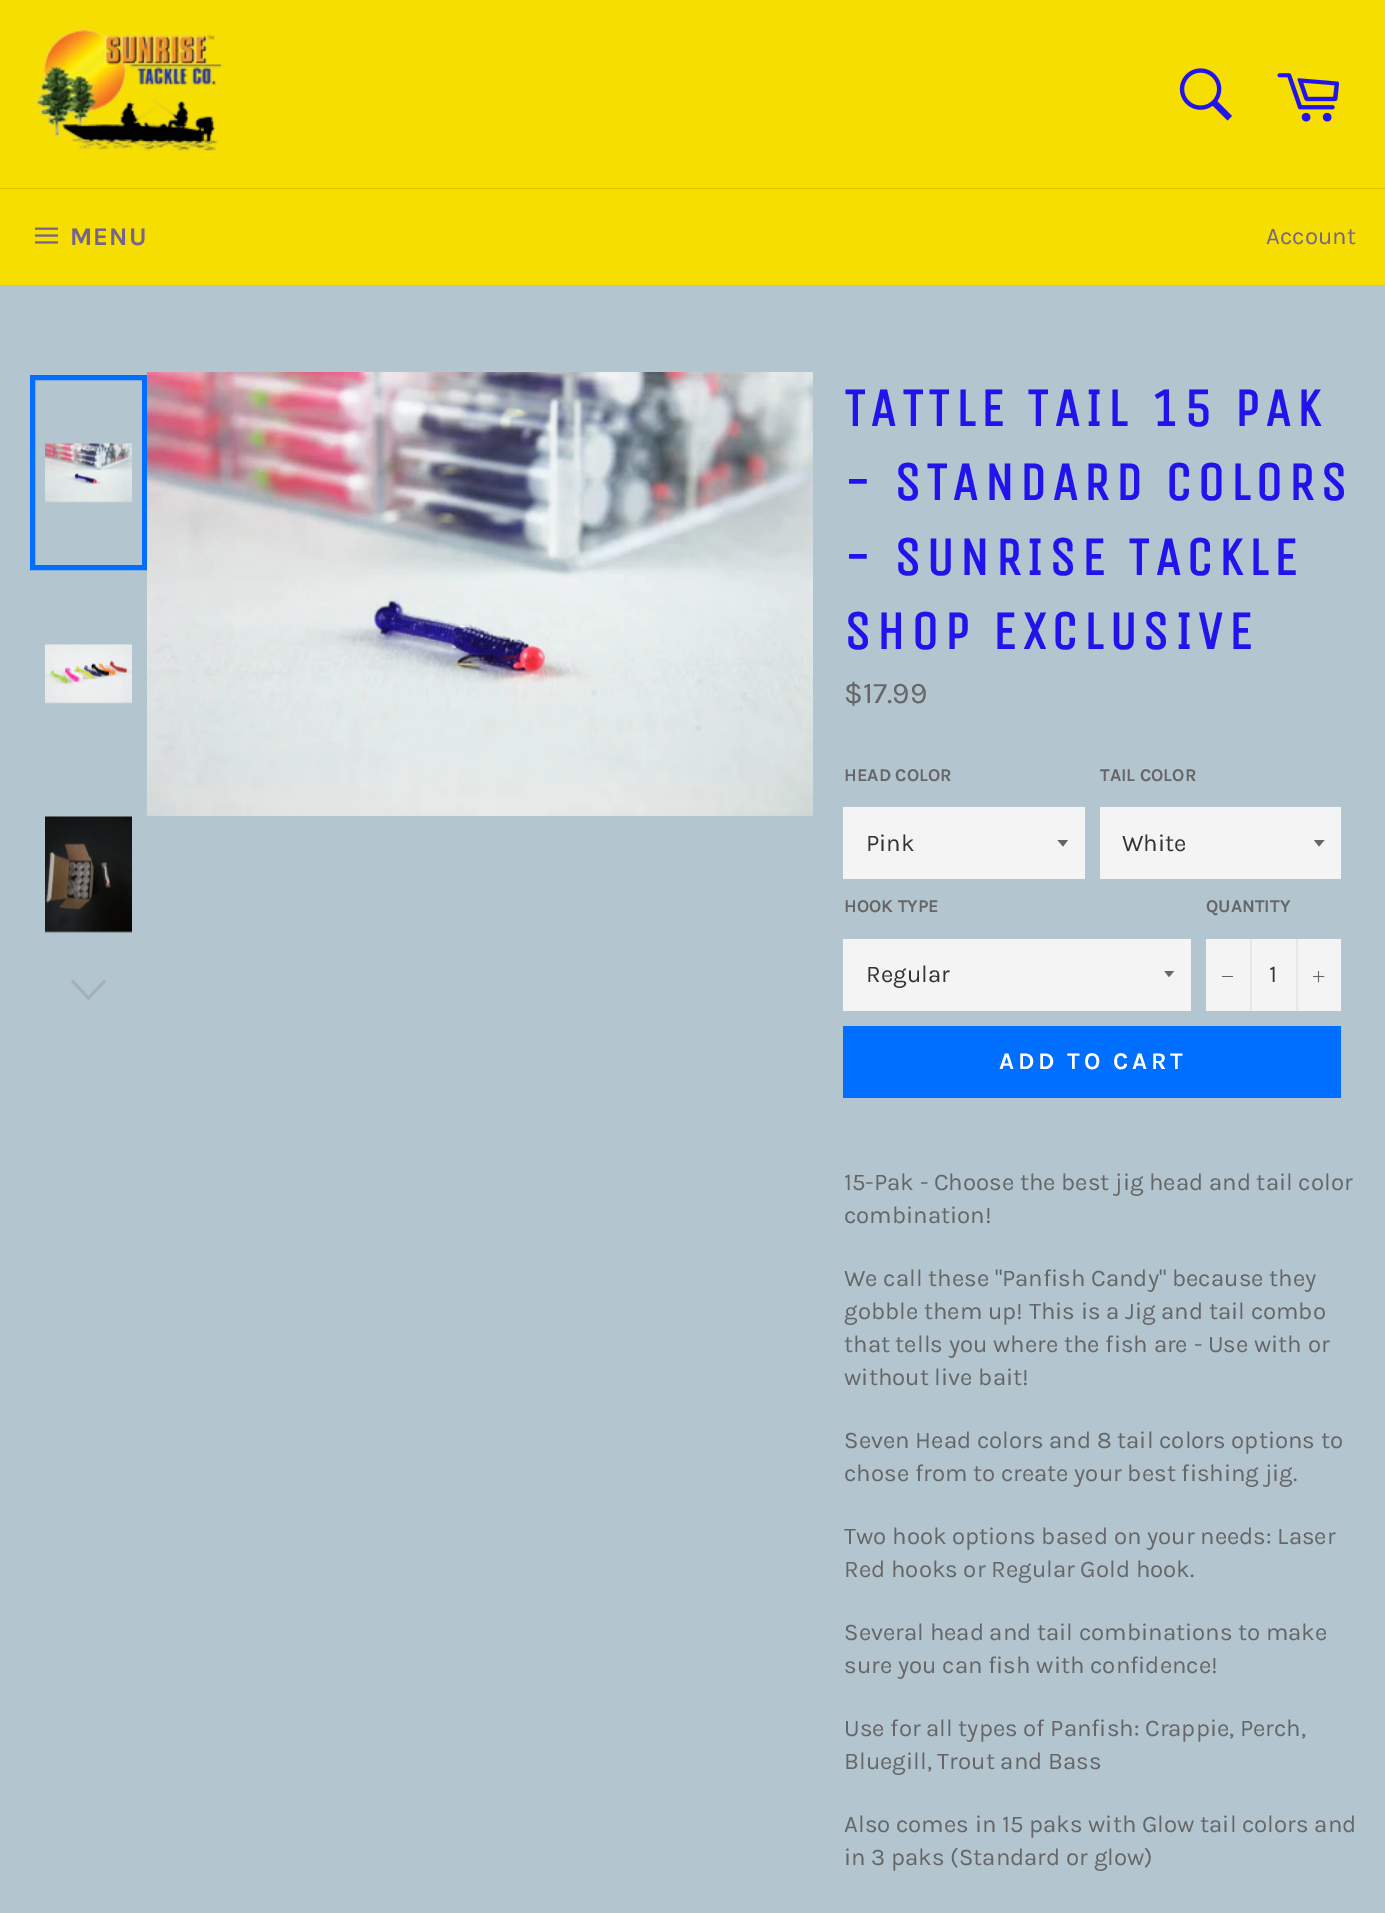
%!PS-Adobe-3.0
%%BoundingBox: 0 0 1385 1913
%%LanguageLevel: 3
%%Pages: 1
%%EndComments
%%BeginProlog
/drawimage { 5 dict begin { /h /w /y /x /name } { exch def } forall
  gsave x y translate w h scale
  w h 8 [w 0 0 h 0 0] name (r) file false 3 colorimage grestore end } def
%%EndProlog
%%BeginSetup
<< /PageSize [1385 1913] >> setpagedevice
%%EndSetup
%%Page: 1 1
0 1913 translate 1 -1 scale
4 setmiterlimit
0.702 0.773 0.812 setrgbcolor
0 0 1385 1913 rectfill
0.961 0.871 0 setrgbcolor
0 0 1385 188 rectfill
(images/1.raw) 34 30 190 121 drawimage
(images/2.raw) 1179 68 53 53 drawimage
(images/3.raw) 1277 73 63 49 drawimage
0.863 0.78 0 setrgbcolor
0 188 1385 1 rectfill
0.961 0.871 0 setrgbcolor
0 189 1385 96 rectfill
(images/4.raw) 35 227 23 17 drawimage
(images/5.raw) 45 443 87 60 drawimage
0 0.431 1 setrgbcolor
5 setlinewidth
32.5 377.5 112 190 rectstroke
(images/6.raw) 45 644 87 60 drawimage
(images/7.raw) 45 816 87 117 drawimage
0.643 0.698 0.729 setrgbcolor
newpath 104 979.5 moveto 106 981.5 lineto 88.5 1000.5 lineto 71 981.5 lineto 73 979.5 lineto 88.5 996 lineto closepath fill
(images/8.raw) 147 372 666 444 drawimage
0.957 setgray
843 807 242 72 rectfill
0.4 setgray
newpath 1057.5 840 moveto 1063 846.5 lineto 1068 840 lineto closepath fill
0.957 setgray
1100 807 241 72 rectfill
0.4 setgray
newpath 1314 840 moveto 1319 846.5 lineto 1324.5 840 lineto closepath fill
0.957 setgray
843 939 348 72 rectfill
gsave
1164 971 12 7 rectclip
0.4 setgray
newpath 1164 970.5 moveto 1169 977 lineto 1174.5 970.5 lineto closepath fill
grestore
1206 939 135 72 rectfill
0.906 setgray
1250 939 2 72 rectfill
0.4 setgray
1222 976 11 1 rectfill
0.906 setgray
1296 939 2 72 rectfill
(images/9.raw) 1313 971 12 12 drawimage
0 0.431 1 setrgbcolor
843 1026 498 72 rectfill
/Karla-Bold [25.5 0 0 -25.5 0 0] selectfont
0.463 0.392 0.557 setrgbcolor
70 245 moveto 1 0 (MENU) ashow
/Karla-Regular [24 0 0 -24 0 0] selectfont
1266 244 moveto (Account) show
/UnicaOne-Bold [54 0 0 -54 0 0] selectfont
0.133 0.075 0.925 setrgbcolor
844 426 moveto 5.4 0 (TATTLE TAIL 15 PAK) ashow
844 500 moveto 5.4 0 (- STANDARD COLORS) ashow
844 575 moveto 5.4 0 (- SUNRISE TACKLE) ashow
844 649 moveto 5.4 0 (SHOP EXCLUSIVE) ashow
/Karla-Regular [30 0 0 -30 0 0] selectfont
0.4 setgray
844 703 moveto ($17.99) show
/Karla-Bold [18 0 0 -18 0 0] selectfont
844 781 moveto (HEAD COLOR) show
/Karla-Regular [24 0 0 -24 0 0] selectfont
0.2 setgray
866 851 moveto (Pink) show
/Karla-Bold [18 0 0 -18 0 0] selectfont
0.4 setgray
1100 781 moveto (TAIL COLOR) show
/Karla-Regular [24 0 0 -24 0 0] selectfont
0.2 setgray
1122 851 moveto (White) show
/Karla-Bold [18 0 0 -18 0 0] selectfont
0.4 setgray
844 912 moveto (HOOK TYPE) show
/Karla-Regular [24 0 0 -24 0 0] selectfont
0.2 setgray
866 982 moveto (Regular) show
/Karla-Bold [18 0 0 -18 0 0] selectfont
0.4 setgray
1206 912 moveto (QUANTITY) show
/Karla-Regular [24 0 0 -24 0 0] selectfont
0.2 setgray
1269 982 moveto (1) show
/Karla-Bold [24 0 0 -24 0 0] selectfont
1 setgray
999 1069 moveto 3.6 0 (ADD TO CART) ashow
/Karla-Regular [24 0 0 -24 0 0] selectfont
0.4 setgray
844 1190 moveto (15-Pak - Choose the best jig head and tail color) show
844 1223 moveto (combination!) show
844 1286 moveto (We call these "Panfish Candy" because they) show
844 1319 moveto (gobble them up! This is a Jig and tail combo) show
844 1352 moveto (that tells you where the fish are - Use with or) show
844 1385 moveto (without live bait!) show
844 1448 moveto (Seven Head colors and 8 tail colors options to) show
844 1481 moveto (chose from to create your best fishing jig.) show
844 1544 moveto (Two hook options based on your needs: Laser) show
844 1577 moveto (Red hooks or Regular Gold hook.) show
844 1640 moveto (Several head and tail combinations to make) show
844 1673 moveto (sure you can fish with confidence!) show
844 1736 moveto (Use for all types of Panfish: Crappie, Perch,) show
844 1769 moveto (Bluegill, Trout and Bass) show
844 1832 moveto (Also comes in 15 paks with Glow tail colors and) show
844 1865 moveto (in 3 paks \(Standard or glow\)) show
showpage
%%EOF
